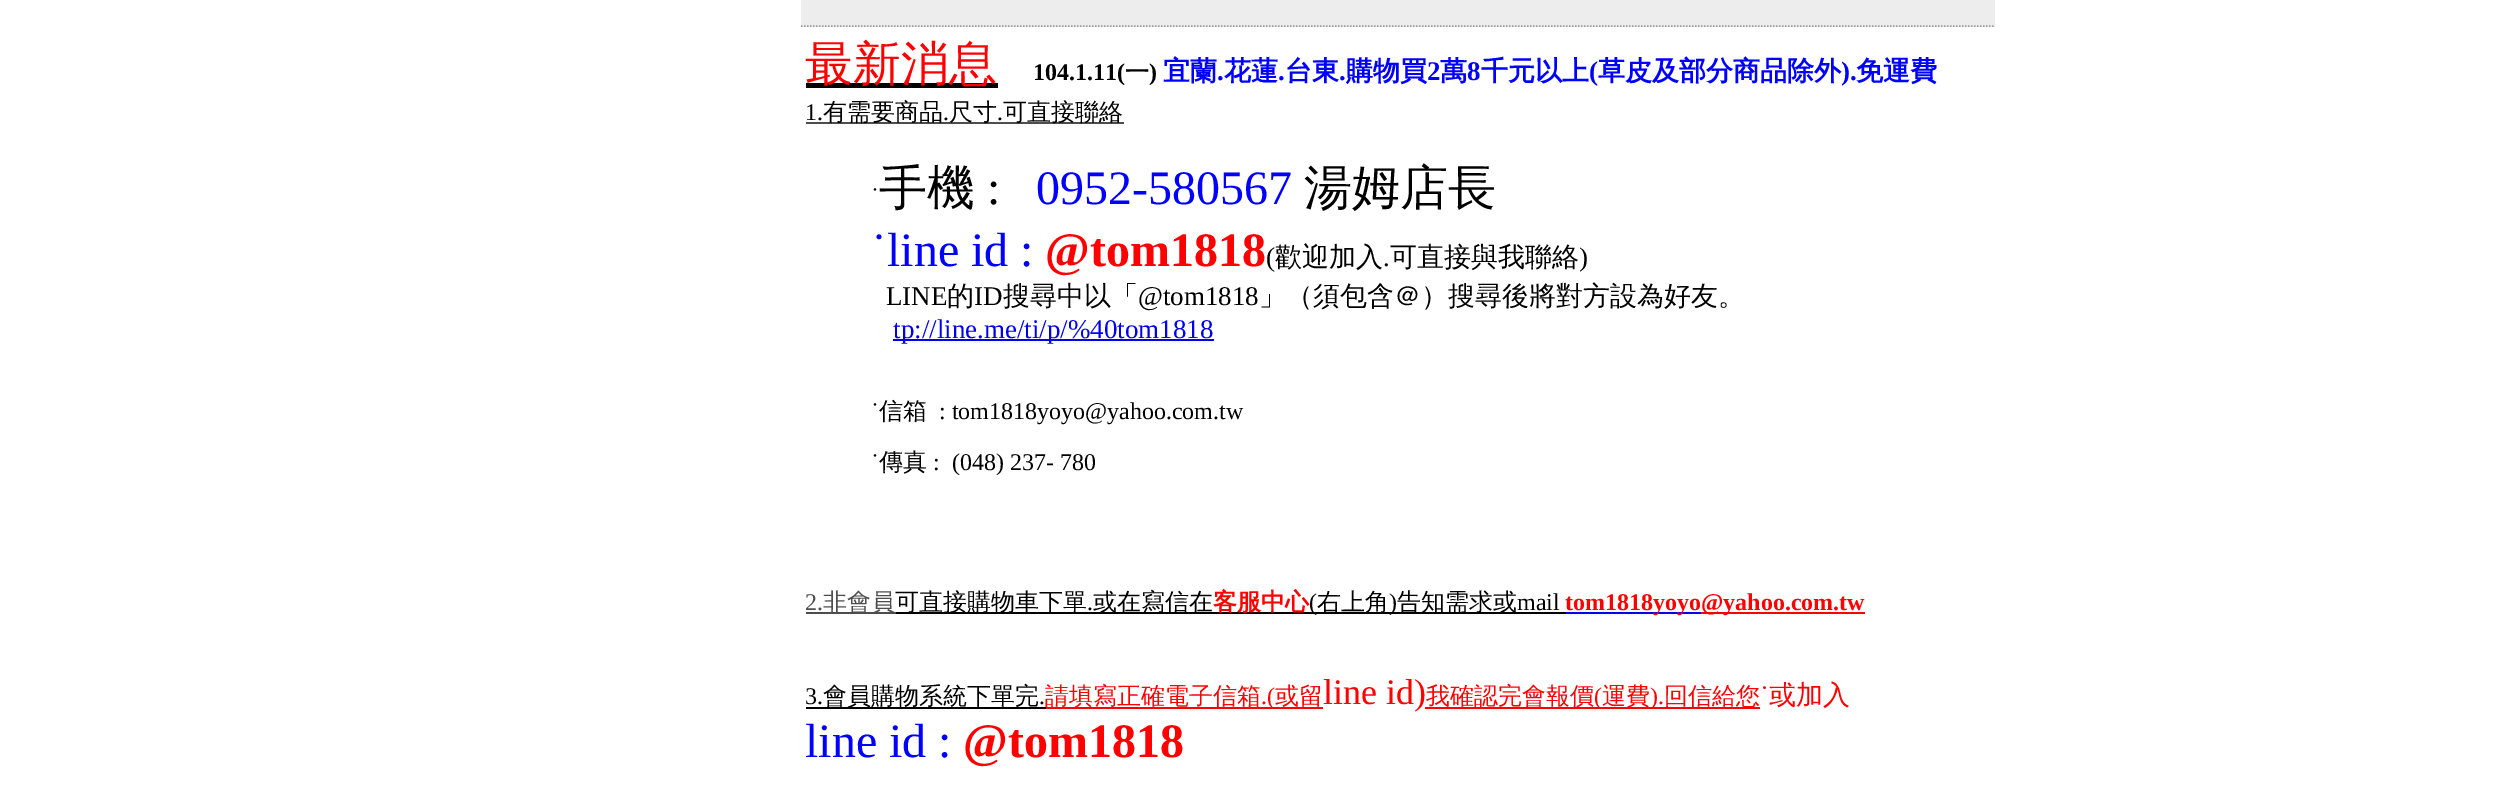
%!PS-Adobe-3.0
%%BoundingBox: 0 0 2509 800
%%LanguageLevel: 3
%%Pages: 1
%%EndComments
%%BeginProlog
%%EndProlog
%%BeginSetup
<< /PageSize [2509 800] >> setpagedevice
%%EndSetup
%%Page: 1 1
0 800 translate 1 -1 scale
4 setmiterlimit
1 setgray
0 0 2509 800 rectfill
0.929 setgray
801 0 1194 27 rectfill
0.6 setgray
1.5 setlinewidth
[1.5 1.5] 0 setdash
newpath 801 26 moveto 1995 26 lineto stroke
0 setgray
806 83 192 5 rectfill
0.302 setgray
806 122 318 2 rectfill
0 0 0.933 setrgbcolor
893 339 321 2 rectfill
0.302 setgray
806 612 90 2 rectfill
0 setgray
896 612 670 2 rectfill
0 0 0.933 setrgbcolor
1566 612 135 2 rectfill
1 0 0 setrgbcolor
1701 612 164 2 rectfill
0 setgray
806 707 240 2 rectfill
1 0 0 setrgbcolor
1046 707 277 2 rectfill
1425 707 335 2 rectfill
/WenQuanYiZenHei-Medium [48 0 0 -48 0 0] selectfont
805 80 moveto (最新消息) show
/LiberationSerif-Bold [24 0 0 -24 0 0] selectfont
0 setgray
1033 80 moveto (104.1.11\() show
/WenQuanYiZenHei-Bold [24 0 0 -24 0 0] selectfont
1125 80 moveto (一) show
/LiberationSerif-Bold [24 0 0 -24 0 0] selectfont
1149 80 moveto (\)) show
/WenQuanYiZenHei-Bold [27 0 0 -27 0 0] selectfont
0 0 1 setrgbcolor
1163 80 moveto (宜蘭) show
1224 80 moveto (花蓮) show
1285 80 moveto (台東) show
1346 80 moveto (購物買) show
/LiberationSerif-Bold [27 0 0 -27 0 0] selectfont
1427 80 moveto (2) show
/WenQuanYiZenHei-Bold [27 0 0 -27 0 0] selectfont
1440 80 moveto (萬) show
/LiberationSerif-Bold [27 0 0 -27 0 0] selectfont
1467 80 moveto (8) show
/WenQuanYiZenHei-Bold [27 0 0 -27 0 0] selectfont
1481 80 moveto (千元以上) show
/LiberationSerif-Bold [27 0 0 -27 0 0] selectfont
1589 80 moveto (\() show
/WenQuanYiZenHei-Bold [27 0 0 -27 0 0] selectfont
1598 80 moveto (草皮及部分商品除外) show
/LiberationSerif-Bold [27 0 0 -27 0 0] selectfont
1841 80 moveto (\).) show
/WenQuanYiZenHei-Bold [27 0 0 -27 0 0] selectfont
1856 80 moveto (免運費) show
/LiberationSerif-Bold [27 0 0 -27 0 0] selectfont
1217 80 moveto (.) show
1278 80 moveto (.) show
1339 80 moveto (.) show
/LiberationSerif-Regular [24 0 0 -24 0 0] selectfont
0 setgray
805 120 moveto (1.) show
/WenQuanYiZenHei-Medium [24 0 0 -24 0 0] selectfont
823 120 moveto (有需要商品) show
/LiberationSerif-Regular [24 0 0 -24 0 0] selectfont
943 120 moveto (.) show
/WenQuanYiZenHei-Medium [24 0 0 -24 0 0] selectfont
949 120 moveto (尺寸) show
/LiberationSerif-Regular [24 0 0 -24 0 0] selectfont
997 120 moveto (.) show
/WenQuanYiZenHei-Medium [24 0 0 -24 0 0] selectfont
1003 120 moveto (可直接聯絡) show
/LiberationSerif-Regular [24 0 0 -24 0 0] selectfont
871 204 moveto (˙) show
/WenQuanYiZenHei-Medium [48 0 0 -48 0 0] selectfont
879 204 moveto (手機) show
/LiberationSerif-Regular [48 0 0 -48 0 0] selectfont
987 204 moveto (:) show
0 0 1 setrgbcolor
1036 204 moveto (0952-580567) show
/WenQuanYiZenHei-Medium [48 0 0 -48 0 0] selectfont
0 setgray
1304 204 moveto (湯姆店長) show
/LiberationSerif-Regular [48 0 0 -48 0 0] selectfont
0 0 1 setrgbcolor
871 266 moveto (˙line id :) show
/LiberationSerif-Bold [48 0 0 -48 0 0] selectfont
1 0 0 setrgbcolor
1045 266 moveto (@tom1818) show
/LiberationSerif-Regular [27 0 0 -27 0 0] selectfont
0 setgray
1266 266 moveto (\() show
/WenQuanYiZenHei-Medium [27 0 0 -27 0 0] selectfont
1275 266 moveto (歡迎加入) show
/LiberationSerif-Regular [27 0 0 -27 0 0] selectfont
1383 266 moveto (.) show
/WenQuanYiZenHei-Medium [27 0 0 -27 0 0] selectfont
1390 266 moveto (可直接與我聯絡) show
/LiberationSerif-Regular [27 0 0 -27 0 0] selectfont
1579 266 moveto (\)) show
886 305 moveto (LINE) show
/WenQuanYiZenHei-Medium [27 0 0 -27 0 0] selectfont
947 305 moveto (的) show
/LiberationSerif-Regular [27 0 0 -27 0 0] selectfont
974 305 moveto (ID) show
/WenQuanYiZenHei-Medium [27 0 0 -27 0 0] selectfont
1003 305 moveto (搜尋中以「) show
/LiberationSerif-Regular [27 0 0 -27 0 0] selectfont
1138 305 moveto (@tom1818) show
/WenQuanYiZenHei-Medium [27 0 0 -27 0 0] selectfont
1259 305 moveto (」（須包含＠）搜尋後將對方設為好友。) show
/LiberationSerif-Regular [27 0 0 -27 0 0] selectfont
0 0 0.933 setrgbcolor
893 338 moveto (tp://line.me/ti/p/%40tom1818) show
/LiberationSerif-Regular [24 0 0 -24 0 0] selectfont
0 setgray
871 419 moveto (˙) show
/WenQuanYiZenHei-Medium [24 0 0 -24 0 0] selectfont
879 419 moveto (信箱) show
/LiberationSerif-Regular [24 0 0 -24 0 0] selectfont
939 419 moveto (: tom1818yoyo@yahoo.com.tw) show
871 470 moveto (˙) show
/WenQuanYiZenHei-Medium [24 0 0 -24 0 0] selectfont
879 470 moveto (傳真) show
/LiberationSerif-Regular [24 0 0 -24 0 0] selectfont
933 470 moveto (:  \(048\) 237- 780) show
0.302 setgray
805 610 moveto (2.) show
/WenQuanYiZenHei-Medium [24 0 0 -24 0 0] selectfont
823 610 moveto (非會員) show
0 setgray
895 610 moveto (可直接購物車下單) show
/LiberationSerif-Regular [24 0 0 -24 0 0] selectfont
1087 610 moveto (.) show
/WenQuanYiZenHei-Medium [24 0 0 -24 0 0] selectfont
1093 610 moveto (或在寫信在) show
/WenQuanYiZenHei-Bold [24 0 0 -24 0 0] selectfont
1 0 0 setrgbcolor
1213 610 moveto (客服中心) show
/LiberationSerif-Regular [24 0 0 -24 0 0] selectfont
0 setgray
1309 610 moveto (\() show
/WenQuanYiZenHei-Medium [24 0 0 -24 0 0] selectfont
1317 610 moveto (右上角) show
/LiberationSerif-Regular [24 0 0 -24 0 0] selectfont
1389 610 moveto (\)) show
/WenQuanYiZenHei-Medium [24 0 0 -24 0 0] selectfont
1397 610 moveto (告知需求或) show
/LiberationSerif-Regular [24 0 0 -24 0 0] selectfont
1517 610 moveto (mail) show
/LiberationSerif-Bold [24 0 0 -24 0 0] selectfont
1 0 0 setrgbcolor
1565 610 moveto (tom1818yoyo) show
1701 610 moveto (@yahoo.com.tw) show
/LiberationSerif-Regular [24 0 0 -24 0 0] selectfont
0 setgray
805 704 moveto (3.) show
/WenQuanYiZenHei-Medium [24 0 0 -24 0 0] selectfont
823 704 moveto (會員購物系統下單完) show
/LiberationSerif-Regular [24 0 0 -24 0 0] selectfont
1039 704 moveto (.) show
/WenQuanYiZenHei-Medium [24 0 0 -24 0 0] selectfont
1 0 0 setrgbcolor
1045 704 moveto (請填寫正確電子信箱) show
/LiberationSerif-Regular [24 0 0 -24 0 0] selectfont
1261 704 moveto (.\() show
/WenQuanYiZenHei-Medium [24 0 0 -24 0 0] selectfont
1275 704 moveto (或留) show
/LiberationSerif-Regular [36 0 0 -36 0 0] selectfont
1323 704 moveto (line id\)) show
/WenQuanYiZenHei-Medium [24 0 0 -24 0 0] selectfont
1426 704 moveto (我確認完會報價) show
/LiberationSerif-Regular [24 0 0 -24 0 0] selectfont
1594 704 moveto (\() show
/WenQuanYiZenHei-Medium [24 0 0 -24 0 0] selectfont
1602 704 moveto (運費) show
/LiberationSerif-Regular [24 0 0 -24 0 0] selectfont
1650 704 moveto (\).) show
/WenQuanYiZenHei-Medium [24 0 0 -24 0 0] selectfont
1664 704 moveto (回信給您) show
/LiberationSerif-Regular [27 0 0 -27 0 0] selectfont
1760 704 moveto (˙) show
/WenQuanYiZenHei-Medium [27 0 0 -27 0 0] selectfont
1769 704 moveto (或加入) show
/LiberationSerif-Regular [48 0 0 -48 0 0] selectfont
0 0 1 setrgbcolor
805 757 moveto (line id :) show
/LiberationSerif-Bold [48 0 0 -48 0 0] selectfont
1 0 0 setrgbcolor
963 757 moveto (@tom1818) show
showpage
%%EOF
